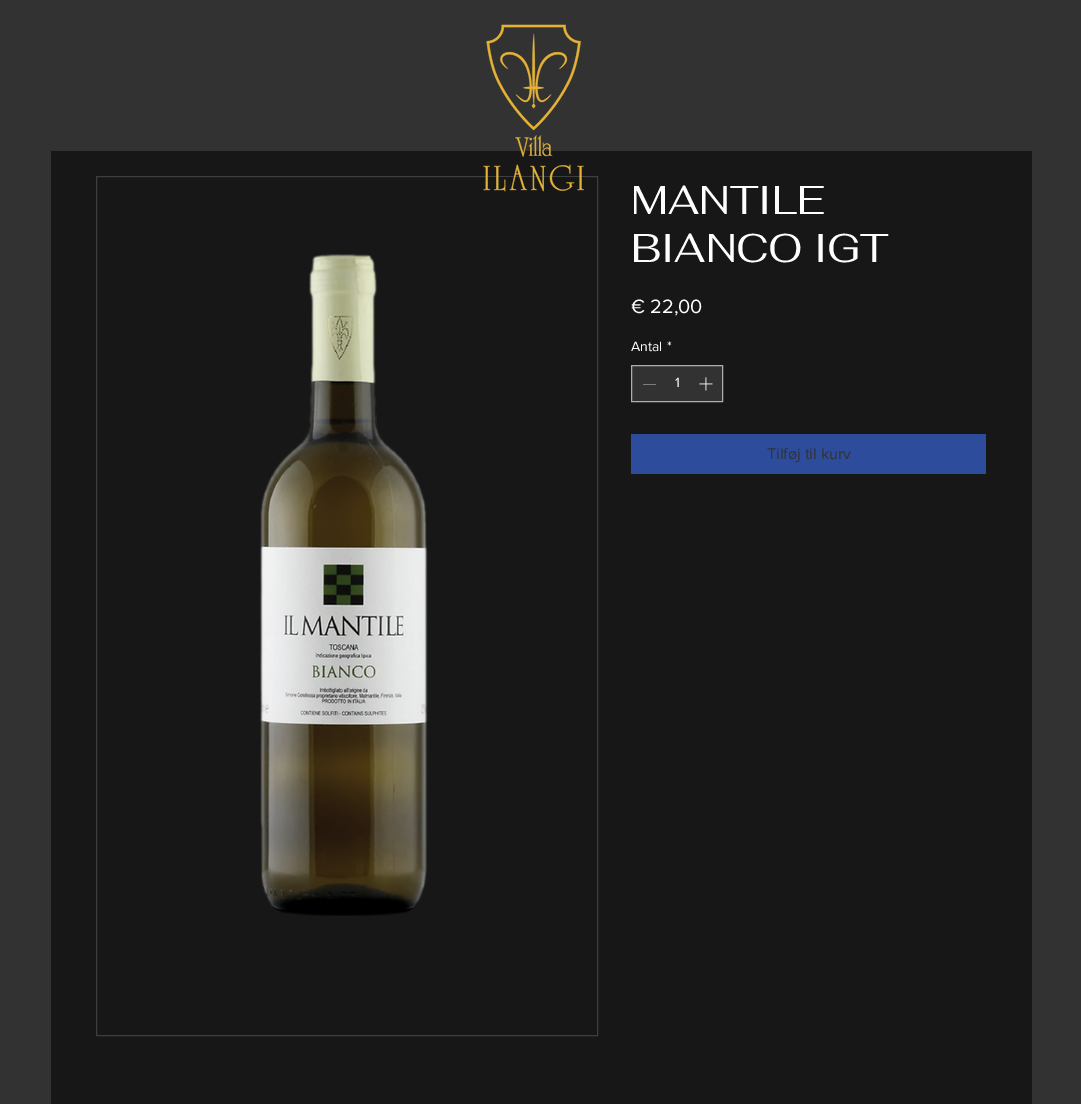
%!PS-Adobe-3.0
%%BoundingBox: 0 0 1081 1104
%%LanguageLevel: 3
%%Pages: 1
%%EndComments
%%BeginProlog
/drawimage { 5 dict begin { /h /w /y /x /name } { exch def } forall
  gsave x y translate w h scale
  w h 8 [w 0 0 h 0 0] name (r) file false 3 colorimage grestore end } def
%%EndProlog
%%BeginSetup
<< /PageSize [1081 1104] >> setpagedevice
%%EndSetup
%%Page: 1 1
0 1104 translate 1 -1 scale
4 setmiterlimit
0.196 setgray
0 0 1081 1104 rectfill
0.09 setgray
51 151 981 953 rectfill
0.243 setgray
96.5 176.5 501 859 rectstroke
(images/1.raw) 483 24 101 168 drawimage
(images/2.raw) 260 254 168 662 drawimage
0.196 setgray
newpath 631.5 365.5 moveto 722.5 365.5 lineto 722.5 401.5 lineto 631.5 401.5 lineto closepath gsave fill grestore
0.678 setgray
stroke
0.49 setgray
643 384 13 1 rectfill
(images/3.raw) 699 377 14 14 drawimage
0.176 0.298 0.612 setrgbcolor
631 434 355 40 rectfill
/Fahkwang-Regular [40 0 0 -40 0 0] selectfont
1 setgray
631 214 moveto (MANTILE) show
631 262 moveto (BIANCO IGT) show
/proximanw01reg-Regular [20 0 0 -20 0 0] selectfont
631 313 moveto (€ 22,00) show
/proximanw01reg-Regular [14 0 0 -14 0 0] selectfont
631 351 moveto (Antal) show
667 351 moveto (*) show
675 387 moveto (1) show
/proximanw01reg-Regular [16 0 0 -16 0 0] selectfont
0.196 setgray
767 459 moveto (Tilføj til kurv) show
showpage
%%EOF
